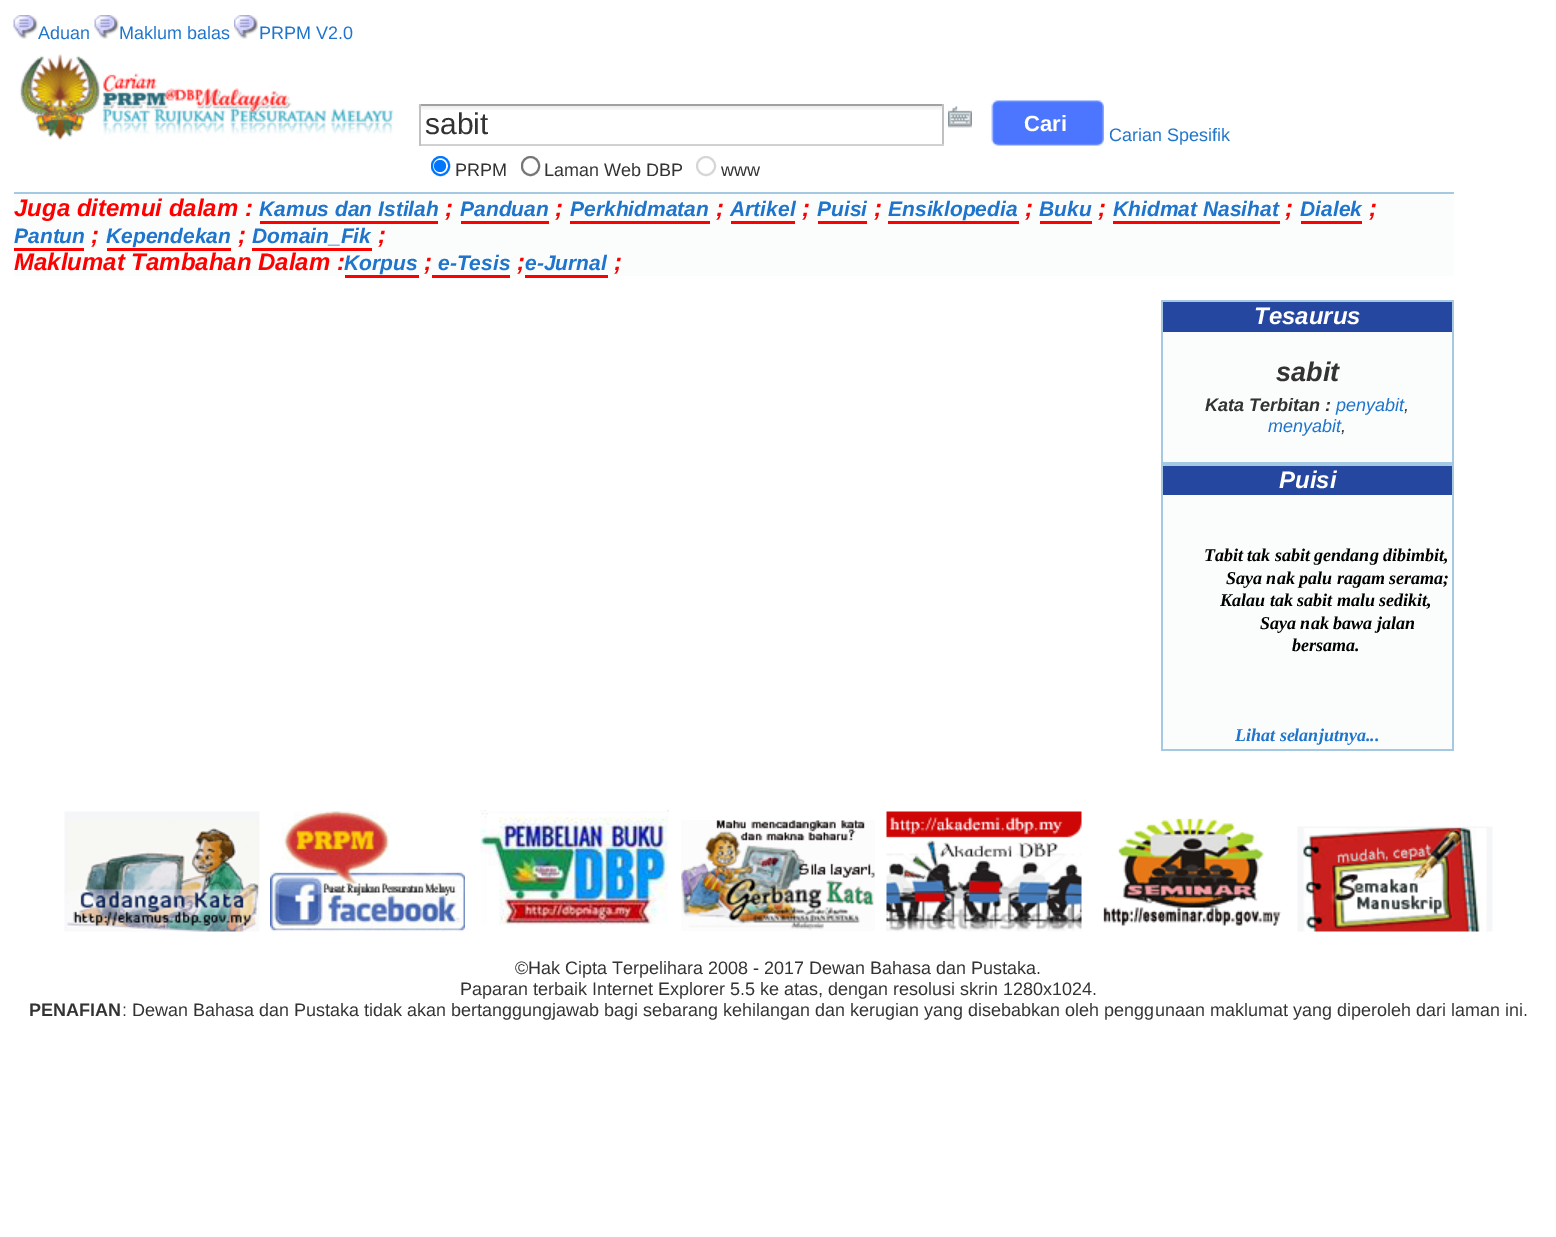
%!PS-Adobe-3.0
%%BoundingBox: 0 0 1556 1237
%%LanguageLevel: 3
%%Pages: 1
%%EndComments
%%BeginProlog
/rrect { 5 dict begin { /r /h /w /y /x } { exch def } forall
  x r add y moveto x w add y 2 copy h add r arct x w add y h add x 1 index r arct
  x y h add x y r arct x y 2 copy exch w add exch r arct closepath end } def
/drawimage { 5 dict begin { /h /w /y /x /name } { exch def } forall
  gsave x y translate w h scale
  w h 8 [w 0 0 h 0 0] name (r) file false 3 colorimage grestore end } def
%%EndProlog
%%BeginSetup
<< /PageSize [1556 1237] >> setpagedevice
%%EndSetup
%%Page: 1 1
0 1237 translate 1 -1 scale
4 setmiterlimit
1 setgray
0 0 1556 1237 rectfill
(images/1.raw) 13 15 25 24 drawimage
(images/1.raw) 94 15 25 24 drawimage
(images/2.raw) 234 15 24 24 drawimage
(images/3.raw) 19 54 375 86 drawimage
(images/4.raw) 418 105 524 5 drawimage
0.631 setgray
419 104 525 2 rectfill
0.757 setgray
942 104 2 42 rectfill
0.82 setgray
419 144 525 2 rectfill
0.757 setgray
419 104 2 42 rectfill
(images/5.raw) 948 106 24 22 drawimage
(images/6.raw) 991 100 113 46 drawimage
0 0.459 1 setrgbcolor
2 setlinewidth
432 157 17 18 8.5 rrect stroke
newpath 440 166 6 0 360 arc closepath fill
0.463 setgray
522 157 17 18 8.5 rrect stroke
0.839 setgray
newpath 706 166 9 0 360 arc closepath stroke
0.984 0.988 0.988 setrgbcolor
14 194 1440 82 rectfill
0.651 0.788 0.886 setrgbcolor
14 192 1440 2 rectfill
1 0 0 setrgbcolor
260 221 178 3 rectfill
461 221 88 3 rectfill
570 221 140 3 rectfill
731 221 64 3 rectfill
818 221 49 3 rectfill
888 221 131 3 rectfill
1040 221 52 3 rectfill
1113 221 167 3 rectfill
1301 221 61 3 rectfill
14 248 70 3 rectfill
107 248 124 3 rectfill
252 248 120 3 rectfill
345 275 74 3 rectfill
432 275 78 3 rectfill
525 275 83 3 rectfill
0.651 0.788 0.886 setrgbcolor
1161 300 293 2 rectfill
0.984 0.988 0.988 setrgbcolor
1163 390 291 3 rectfill
0.651 0.788 0.886 setrgbcolor
1452 300 2 164 rectfill
1161 462 293 4 rectfill
1161 300 2 164 rectfill
0.149 0.278 0.627 setrgbcolor
1163 302 289 30 rectfill
0.984 0.988 0.988 setrgbcolor
1163 332 289 58 rectfill
1163 393 289 69 rectfill
1163 495 291 3 rectfill
0.651 0.788 0.886 setrgbcolor
1452 464 2 286 rectfill
1161 749 293 2 rectfill
1161 464 2 286 rectfill
0.149 0.278 0.627 setrgbcolor
1163 466 289 29 rectfill
0.984 0.988 0.988 setrgbcolor
1163 498 289 251 rectfill
(images/7.raw) 64 811 196 121 drawimage
(images/8.raw) 270 811 195 121 drawimage
(images/9.raw) 480 810 189 115 drawimage
(images/10.raw) 681 820 194 111 drawimage
(images/11.raw) 886 811 196 121 drawimage
(images/12.raw) 1103 818 179 108 drawimage
(images/13.raw) 1297 826 196 106 drawimage
/LiberationSans-Regular [18 0 0 -18 0 0] selectfont
0.122 0.459 0.8 setrgbcolor
38 39 moveto (Aduan) show
119 39 moveto (Maklum balas) show
259 39 moveto (PRPM V2.0) show
/LiberationSans-Regular [30 0 0 -30 0 0] selectfont
0.2 setgray
425 134 moveto (sabit) show
/LiberationSans-Bold [22 0 0 -22 0 0] selectfont
1 setgray
1024 131 moveto (Cari) show
/LiberationSans-Regular [18 0 0 -18 0 0] selectfont
0.122 0.459 0.8 setrgbcolor
1109 141 moveto (Carian Spesifik) show
0.2 setgray
455 176 moveto (PRPM) show
544 176 moveto (Laman Web DBP) show
721 176 moveto (www) show
/LiberationSans-BoldItalic [24 0 0 -24 0 0] selectfont
1 0 0 setrgbcolor
14 216 moveto (Juga ditemui dalam :) show
/LiberationSans-BoldItalic [21 0 0 -21 0 0] selectfont
0.122 0.459 0.8 setrgbcolor
259 216 moveto (Kamus dan Istilah) show
/LiberationSans-BoldItalic [24 0 0 -24 0 0] selectfont
1 0 0 setrgbcolor
445 216 moveto (;) show
/LiberationSans-BoldItalic [21 0 0 -21 0 0] selectfont
0.122 0.459 0.8 setrgbcolor
460 216 moveto (Panduan) show
/LiberationSans-BoldItalic [24 0 0 -24 0 0] selectfont
1 0 0 setrgbcolor
555 216 moveto (;) show
/LiberationSans-BoldItalic [21 0 0 -21 0 0] selectfont
0.122 0.459 0.8 setrgbcolor
570 216 moveto (Perkhidmatan) show
/LiberationSans-BoldItalic [24 0 0 -24 0 0] selectfont
1 0 0 setrgbcolor
716 216 moveto (;) show
/LiberationSans-BoldItalic [21 0 0 -21 0 0] selectfont
0.122 0.459 0.8 setrgbcolor
730 216 moveto (Artikel) show
/LiberationSans-BoldItalic [24 0 0 -24 0 0] selectfont
1 0 0 setrgbcolor
802 216 moveto (;) show
/LiberationSans-BoldItalic [21 0 0 -21 0 0] selectfont
0.122 0.459 0.8 setrgbcolor
817 216 moveto (Puisi) show
/LiberationSans-BoldItalic [24 0 0 -24 0 0] selectfont
1 0 0 setrgbcolor
874 216 moveto (;) show
/LiberationSans-BoldItalic [21 0 0 -21 0 0] selectfont
0.122 0.459 0.8 setrgbcolor
888 216 moveto (Ensiklopedia) show
/LiberationSans-BoldItalic [24 0 0 -24 0 0] selectfont
1 0 0 setrgbcolor
1025 216 moveto (;) show
/LiberationSans-BoldItalic [21 0 0 -21 0 0] selectfont
0.122 0.459 0.8 setrgbcolor
1039 216 moveto (Buku) show
/LiberationSans-BoldItalic [24 0 0 -24 0 0] selectfont
1 0 0 setrgbcolor
1098 216 moveto (;) show
/LiberationSans-BoldItalic [21 0 0 -21 0 0] selectfont
0.122 0.459 0.8 setrgbcolor
1113 216 moveto (Khidmat Nasihat) show
/LiberationSans-BoldItalic [24 0 0 -24 0 0] selectfont
1 0 0 setrgbcolor
1285 216 moveto (;) show
/LiberationSans-BoldItalic [21 0 0 -21 0 0] selectfont
0.122 0.459 0.8 setrgbcolor
1300 216 moveto (Dialek) show
/LiberationSans-BoldItalic [24 0 0 -24 0 0] selectfont
1 0 0 setrgbcolor
1369 216 moveto (;) show
/LiberationSans-BoldItalic [21 0 0 -21 0 0] selectfont
0.122 0.459 0.8 setrgbcolor
14 243 moveto (Pantun) show
/LiberationSans-BoldItalic [24 0 0 -24 0 0] selectfont
1 0 0 setrgbcolor
91 243 moveto (;) show
/LiberationSans-BoldItalic [21 0 0 -21 0 0] selectfont
0.122 0.459 0.8 setrgbcolor
106 243 moveto (Kependekan) show
/LiberationSans-BoldItalic [24 0 0 -24 0 0] selectfont
1 0 0 setrgbcolor
238 243 moveto (;) show
/LiberationSans-BoldItalic [21 0 0 -21 0 0] selectfont
0.122 0.459 0.8 setrgbcolor
252 243 moveto (Domain_Fik) show
/LiberationSans-BoldItalic [24 0 0 -24 0 0] selectfont
1 0 0 setrgbcolor
378 243 moveto (;) show
14 270 moveto (Maklumat Tambahan Dalam :) show
/LiberationSans-BoldItalic [21 0 0 -21 0 0] selectfont
0.122 0.459 0.8 setrgbcolor
344 270 moveto (Korpus) show
/LiberationSans-BoldItalic [24 0 0 -24 0 0] selectfont
1 0 0 setrgbcolor
424 270 moveto (;) show
/LiberationSans-BoldItalic [21 0 0 -21 0 0] selectfont
0.122 0.459 0.8 setrgbcolor
438 270 moveto (e-Tesis) show
/LiberationSans-BoldItalic [24 0 0 -24 0 0] selectfont
1 0 0 setrgbcolor
517 270 moveto (;) show
/LiberationSans-BoldItalic [21 0 0 -21 0 0] selectfont
0.122 0.459 0.8 setrgbcolor
525 270 moveto (e-Jurnal) show
/LiberationSans-BoldItalic [24 0 0 -24 0 0] selectfont
1 0 0 setrgbcolor
614 270 moveto (;) show
1 setgray
1254 324 moveto (Tesaurus) show
/LiberationSans-BoldItalic [27 0 0 -27 0 0] selectfont
0.2 setgray
1276 381 moveto (sabit) show
/LiberationSans-BoldItalic [18 0 0 -18 0 0] selectfont
1205 411 moveto (Kata Terbitan :) show
/LiberationSans-Italic [18 0 0 -18 0 0] selectfont
0.122 0.459 0.8 setrgbcolor
1336 411 moveto (penyabit) show
0.2 setgray
1404 411 moveto (,) show
0.122 0.459 0.8 setrgbcolor
1268 432 moveto (menyabit) show
0.2 setgray
1341 432 moveto (,) show
/LiberationSans-BoldItalic [24 0 0 -24 0 0] selectfont
1 setgray
1279 488 moveto (Puisi) show
/LiberationSerif-BoldItalic [18 0 0 -18 0 0] selectfont
0 setgray
1204 561 moveto (Tabit tak sabit gendang dibimbit,) show
1226 584 moveto (Saya nak palu ragam serama;) show
1220 606 moveto (Kalau tak sabit malu sedikit,) show
1260 629 moveto (Saya nak bawa jalan) show
1292 651 moveto (bersama.) show
0.122 0.459 0.8 setrgbcolor
1235 741 moveto (Lihat selanjutnya...) show
/LiberationSans-Regular [18 0 0 -18 0 0] selectfont
0.2 setgray
515 974 moveto (©Hak Cipta Terpelihara 2008 - 2017 Dewan Bahasa dan Pustaka.) show
460 995 moveto (Paparan terbaik Internet Explorer 5.5 ke atas, dengan resolusi skrin 1280x1024.) show
/LiberationSans-Bold [18 0 0 -18 0 0] selectfont
29 1016 moveto (PENAFIAN) show
/LiberationSans-Regular [18 0 0 -18 0 0] selectfont
122 1016 moveto (: Dewan Bahasa dan Pustaka tidak akan bertanggungjawab bagi sebarang kehilangan dan kerugian yang disebabkan oleh penggunaan maklumat yang diperoleh dari laman ini.) show
showpage
%%EOF
